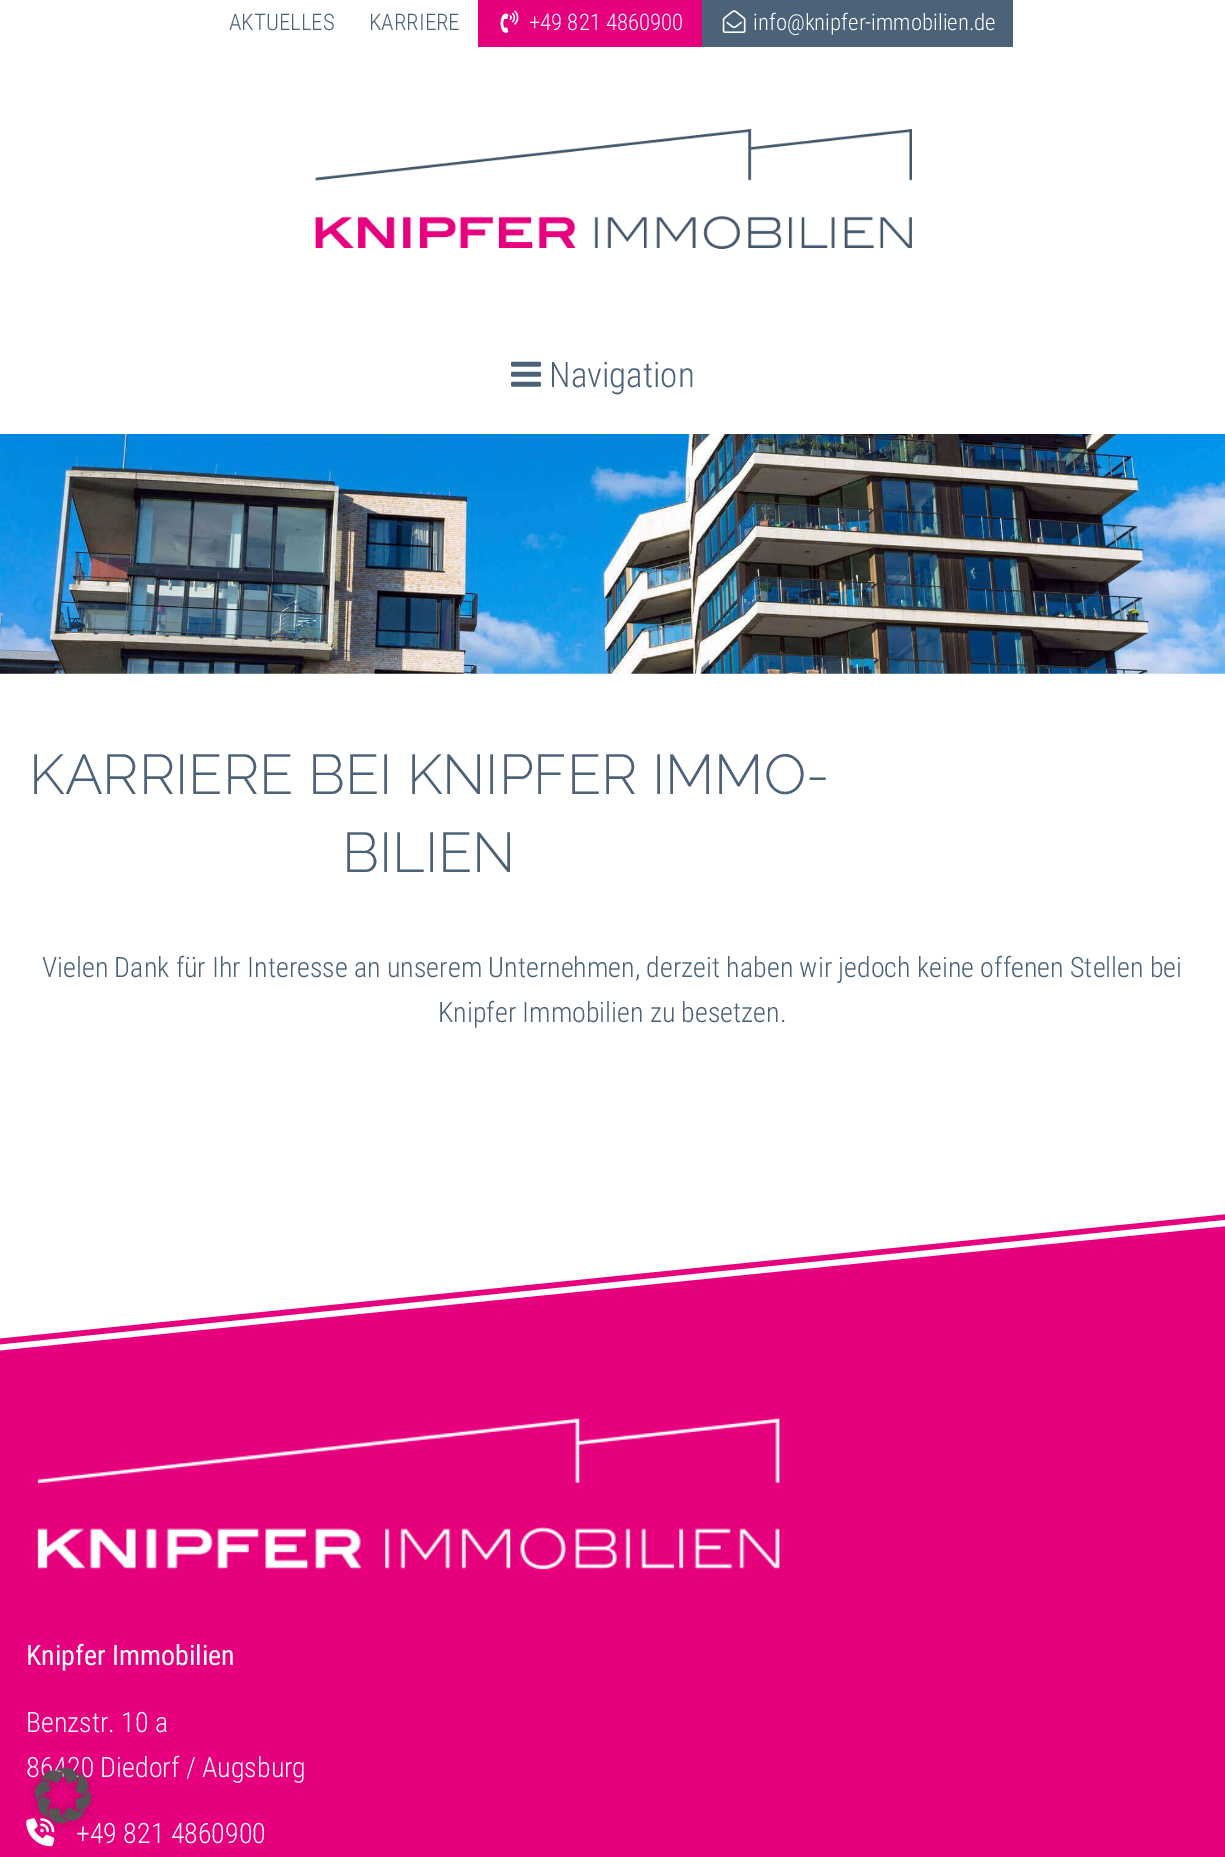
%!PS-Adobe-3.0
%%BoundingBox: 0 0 1225 1857
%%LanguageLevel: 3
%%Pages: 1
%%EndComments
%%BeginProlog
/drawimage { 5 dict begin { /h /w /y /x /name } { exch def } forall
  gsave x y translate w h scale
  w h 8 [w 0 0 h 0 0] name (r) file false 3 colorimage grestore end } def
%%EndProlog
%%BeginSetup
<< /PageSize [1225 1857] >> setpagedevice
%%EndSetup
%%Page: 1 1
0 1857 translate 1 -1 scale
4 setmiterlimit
1 setgray
0 0 1225 1857 rectfill
0.902 0 0.494 setrgbcolor
478 0 224 47 rectfill
(images/1.raw) 500 10 19 23 drawimage
0.294 0.384 0.475 setrgbcolor
702 0 311 47 rectfill
(images/2.raw) 722 10 24 23 drawimage
(images/3.raw) 315 129 597 120 drawimage
(images/4.raw) 511 361 30 26 drawimage
(images/5.raw) 0 434 1225 240 drawimage
0.902 0 0.494 setrgbcolor
newpath -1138 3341 moveto 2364 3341 lineto 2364 1111 lineto -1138 1466 lineto closepath fill
newpath -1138 1460 moveto 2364 1104 lineto 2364 1099 lineto -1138 1454 lineto closepath fill
(images/6.raw) 37 1418 743 152 drawimage
(images/7.raw) 26 1818 29 29 drawimage
/RobotoCondensed-Light [22.75 0 0 -22.75 0 0] selectfont
0.294 0.384 0.475 setrgbcolor
229 30 moveto (AKTUELLES) show
369 30 moveto (KARRIERE) show
1 setgray
529 30 moveto (+49 821 4860900) show
753 30 moveto (info@knipfer-immobilien.de) show
/RobotoCondensed-Light [35 0 0 -35 0 0] selectfont
0.294 0.384 0.475 setrgbcolor
549 387 moveto (Navigation) show
/Raleway-Light [56 0 0 -56 0 0] selectfont
29 794 moveto (KARRIERE BEI KNIPFER IMMO-) show
342 872 moveto (BILIEN) show
/RobotoCondensed-Light [28 0 0 -28 0 0] selectfont
42 977 moveto (Vielen Dank für Ihr Interesse an unserem Unternehmen, derzeit haben wir jedoch keine offenen Stellen bei) show
438 1022 moveto (Knipfer Immobilien zu besetzen.) show
/RobotoCondensed-Regular [28 0 0 -28 0 0] selectfont
1 setgray
26 1665 moveto (Knipfer Immobilien) show
/RobotoCondensed-Light [28 0 0 -28 0 0] selectfont
26 1732 moveto (Benzstr. 10 a) show
26 1777 moveto (86420 Diedorf / Augsburg) show
76 1843 moveto (+49 821 4860900) show
(images/8.raw) 28 1761 70 69 drawimage
showpage
%%EOF
